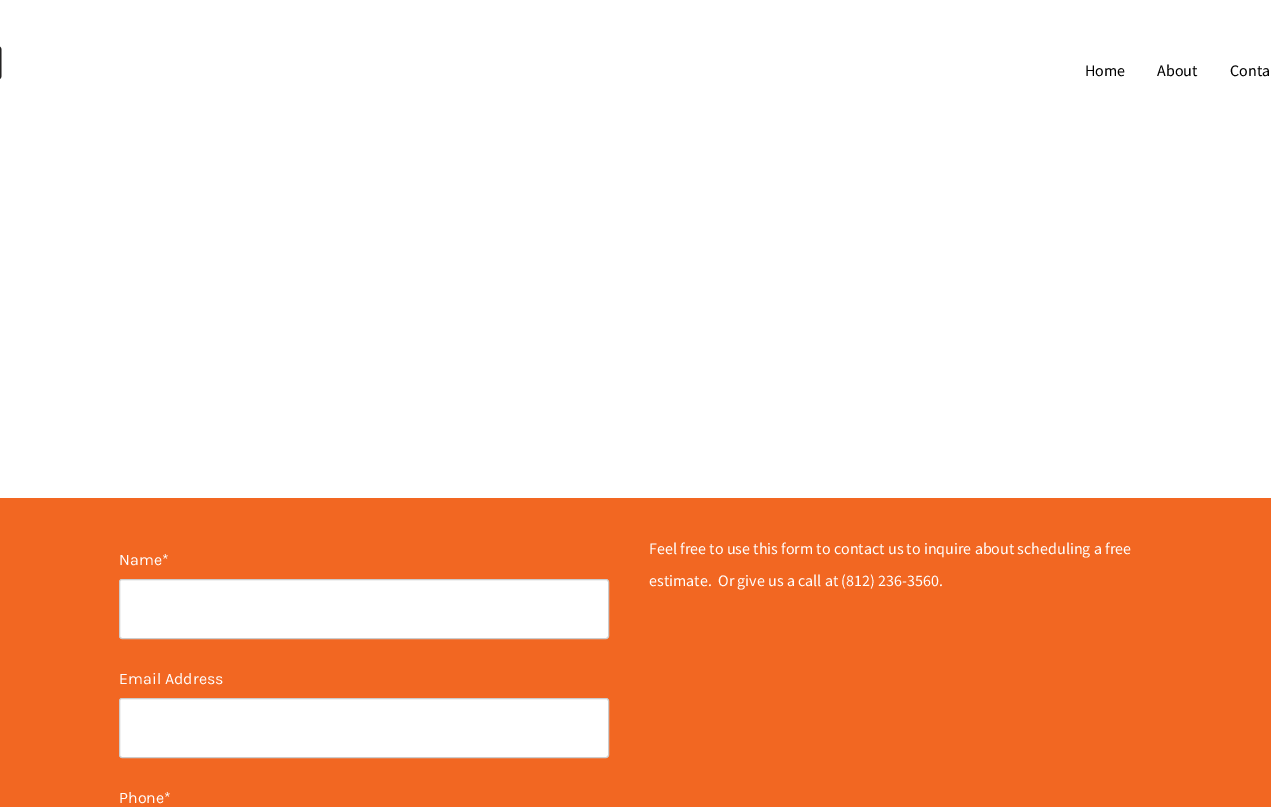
%!PS-Adobe-3.0
%%BoundingBox: 0 0 1271 807
%%LanguageLevel: 3
%%Pages: 1
%%EndComments
%%BeginProlog
/rrect { 5 dict begin { /r /h /w /y /x } { exch def } forall
  x r add y moveto x w add y 2 copy h add r arct x w add y h add x 1 index r arct
  x y h add x y r arct x y 2 copy exch w add exch r arct closepath end } def
/drawimage { 5 dict begin { /h /w /y /x /name } { exch def } forall
  gsave x y translate w h scale
  w h 8 [w 0 0 h 0 0] name (r) file false 3 colorimage grestore end } def
%%EndProlog
%%BeginSetup
<< /PageSize [1271 807] >> setpagedevice
%%EndSetup
%%Page: 1 1
0 807 translate 1 -1 scale
4 setmiterlimit
0.949 0.404 0.133 setrgbcolor
0 0 1271 807 rectfill
1 setgray
0 0 1271 498 rectfill
(images/1.raw) 0 46 2 33 drawimage
119.5 579.5 489 59 2.5 rrect gsave fill grestore
0.8 setgray
stroke
1 setgray
119.5 698.5 489 59 2.5 rrect gsave fill grestore
0.8 setgray
stroke
/SourceSansPro-Regular [16 0 0 -16 0 0] selectfont
0 setgray
1085 76 moveto (Home) show
1157 76 moveto (About) show
1230 76 moveto (Conta) show
/Karla-Regular [16 0 0 -16 0 0] selectfont
1 setgray
119 565 moveto (Name*) show
119 684 moveto (Email Address) show
119 803 moveto (Phone*) show
/SourceSansPro-Regular [16 0 0 -16 0 0] selectfont
649 554 moveto (Feel free to use this form to contact us to inquire about scheduling a free) show
649 586 moveto (estimate.  Or give us a call at \(812\) 236-3560.) show
showpage
%%EOF
